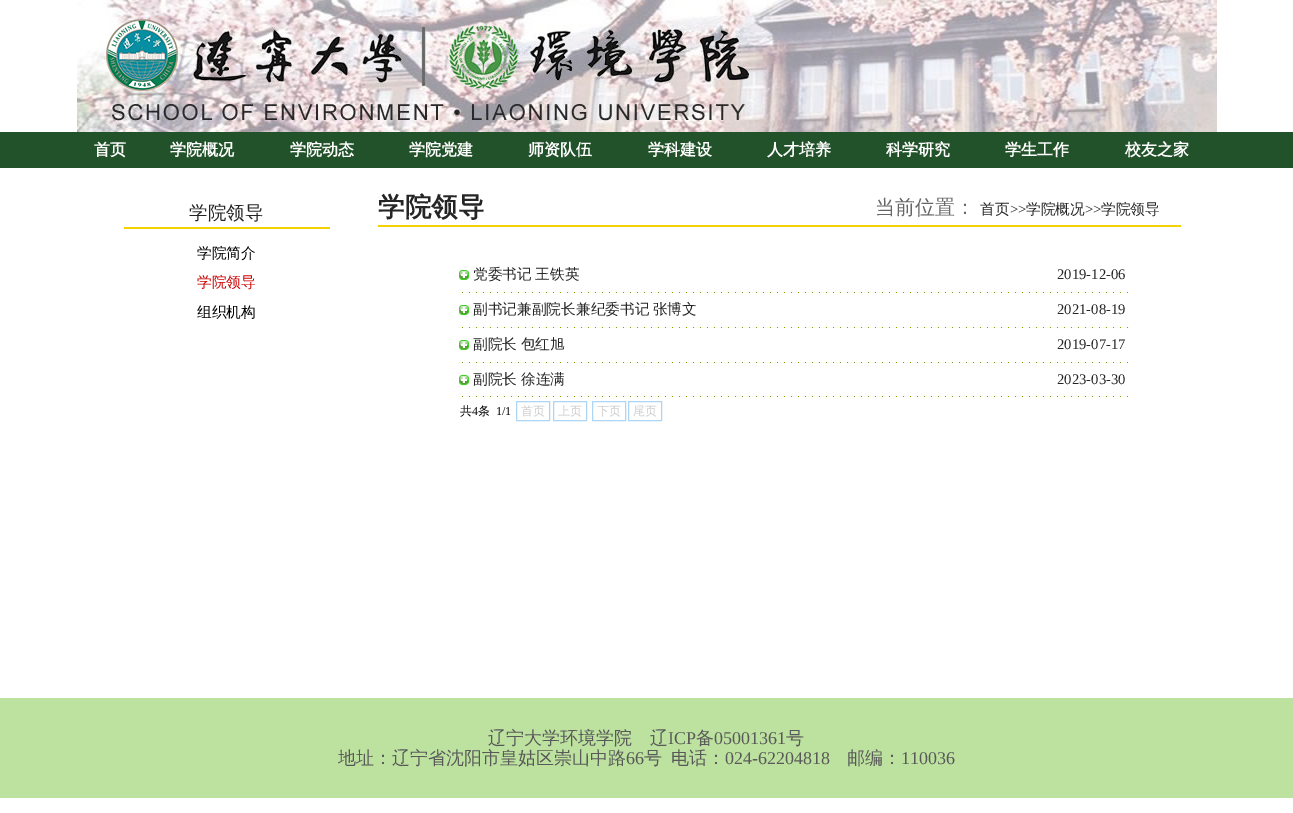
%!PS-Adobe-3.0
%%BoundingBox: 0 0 1293 813
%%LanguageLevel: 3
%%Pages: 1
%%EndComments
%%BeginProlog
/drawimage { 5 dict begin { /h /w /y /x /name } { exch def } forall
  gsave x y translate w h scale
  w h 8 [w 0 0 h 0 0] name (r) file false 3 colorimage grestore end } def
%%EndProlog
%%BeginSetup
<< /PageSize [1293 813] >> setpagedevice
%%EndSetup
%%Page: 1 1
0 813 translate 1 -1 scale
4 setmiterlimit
1 setgray
0 0 1293 813 rectfill
(images/1.raw) 77 0 1140 132 drawimage
0.133 0.322 0.161 setrgbcolor
0 132 1293 36 rectfill
0.961 0.82 0.004 setrgbcolor
124 227 206 2 rectfill
378 225 803 2 rectfill
(images/2.raw) 459 270 10 10 drawimage
(images/3.raw) 458 292 672 1 drawimage
(images/2.raw) 459 305 10 10 drawimage
(images/3.raw) 458 327 672 1 drawimage
(images/2.raw) 459 340 10 10 drawimage
(images/3.raw) 458 362 672 1 drawimage
(images/2.raw) 459 375 10 10 drawimage
(images/3.raw) 458 396 672 1 drawimage
0.686 0.835 0.961 setrgbcolor
516.5 401.5 33 19 rectstroke
553.5 401.5 33 19 rectstroke
592.5 401.5 33 19 rectstroke
628.5 401.5 33 19 rectstroke
0.741 0.886 0.624 setrgbcolor
0 698 1293 100 rectfill
/WenQuanYiZenHei-Bold [16 0 0 -16 0 0] selectfont
1 setgray
94 155 moveto (首页) show
170 155 moveto (学院概况) show
290 155 moveto (学院动态) show
409 155 moveto (学院党建) show
528 155 moveto (师资队伍) show
648 155 moveto (学科建设) show
767 155 moveto (人才培养) show
886 155 moveto (科学研究) show
1005 155 moveto (学生工作) show
1125 155 moveto (校友之家) show
/WenQuanYiZenHei-Medium [18.5 0 0 -18.5 0 0] selectfont
0.145 setgray
189 219 moveto (学院领导) show
/WenQuanYiZenHei-Medium [14.7 0 0 -14.7 0 0] selectfont
0 setgray
197 258 moveto (学院简介) show
0.8 0 0 setrgbcolor
197 287 moveto (学院领导) show
0 setgray
197 317 moveto (组织机构) show
/WenQuanYiZenHei-Bold [26.5 0 0 -26.5 0 0] selectfont
0.145 setgray
378 216 moveto (学院领导) show
/WenQuanYiZenHei-Medium [20 0 0 -20 0 0] selectfont
0.4 setgray
875 214 moveto (当前位置：) show
/WenQuanYiZenHei-Medium [14.7 0 0 -14.7 0 0] selectfont
0.145 setgray
980 214 moveto (首页) show
/LiberationSerif-Regular [14.7 0 0 -14.7 0 0] selectfont
1010 214 moveto (>>) show
/WenQuanYiZenHei-Medium [14.7 0 0 -14.7 0 0] selectfont
1026 214 moveto (学院概况) show
/LiberationSerif-Regular [14.7 0 0 -14.7 0 0] selectfont
1085 214 moveto (>>) show
/WenQuanYiZenHei-Medium [14.7 0 0 -14.7 0 0] selectfont
1101 214 moveto (学院领导) show
473 279 moveto -1 0 32 (党委书记 王铁英) widthshow
/LiberationSerif-Regular [14.7 0 0 -14.7 0 0] selectfont
1057 279 moveto (2019-12-06) show
/WenQuanYiZenHei-Medium [14.7 0 0 -14.7 0 0] selectfont
473 314 moveto -1 0 32 (副书记兼副院长兼纪委书记 张博文) widthshow
/LiberationSerif-Regular [14.7 0 0 -14.7 0 0] selectfont
1057 314 moveto (2021-08-19) show
/WenQuanYiZenHei-Medium [14.7 0 0 -14.7 0 0] selectfont
473 349 moveto -1 0 32 (副院长 包红旭) widthshow
/LiberationSerif-Regular [14.7 0 0 -14.7 0 0] selectfont
1057 349 moveto (2019-07-17) show
/WenQuanYiZenHei-Medium [14.7 0 0 -14.7 0 0] selectfont
473 384 moveto (副院长) show
521 384 moveto (徐连满) show
/LiberationSerif-Regular [14.7 0 0 -14.7 0 0] selectfont
1057 384 moveto (2023-03-30) show
/WenQuanYiZenHei-Medium [12 0 0 -12 0 0] selectfont
0 setgray
460 415 moveto (共) show
/LiberationSerif-Regular [12 0 0 -12 0 0] selectfont
472 415 moveto (4) show
/WenQuanYiZenHei-Medium [12 0 0 -12 0 0] selectfont
478 415 moveto (条) show
/LiberationSerif-Regular [12 0 0 -12 0 0] selectfont
496 415 moveto (1/1) show
/WenQuanYiZenHei-Medium [12 0 0 -12 0 0] selectfont
0.8 setgray
521 415 moveto (首页) show
558 415 moveto (上页) show
597 415 moveto (下页) show
633 415 moveto (尾页) show
/WenQuanYiZenHei-Medium [18 0 0 -18 0 0] selectfont
0.349 setgray
488 744 moveto (辽宁大学环境学院) show
650 744 moveto (辽) show
/LiberationSerif-Regular [18 0 0 -18 0 0] selectfont
668 744 moveto (ICP) show
/WenQuanYiZenHei-Medium [18 0 0 -18 0 0] selectfont
696 744 moveto (备) show
/LiberationSerif-Regular [18 0 0 -18 0 0] selectfont
714 744 moveto (05001361) show
/WenQuanYiZenHei-Medium [18 0 0 -18 0 0] selectfont
786 744 moveto (号) show
338 764 moveto (地址：辽宁省沈阳市皇姑区崇山中路) show
/LiberationSerif-Regular [18 0 0 -18 0 0] selectfont
626 764 moveto (66) show
/WenQuanYiZenHei-Medium [18 0 0 -18 0 0] selectfont
644 764 moveto (号) show
671 764 moveto (电话：) show
/LiberationSerif-Regular [18 0 0 -18 0 0] selectfont
725 764 moveto (024-62204818) show
/WenQuanYiZenHei-Medium [18 0 0 -18 0 0] selectfont
847 764 moveto (邮编：) show
/LiberationSerif-Regular [18 0 0 -18 0 0] selectfont
901 764 moveto (110036) show
showpage
%%EOF
